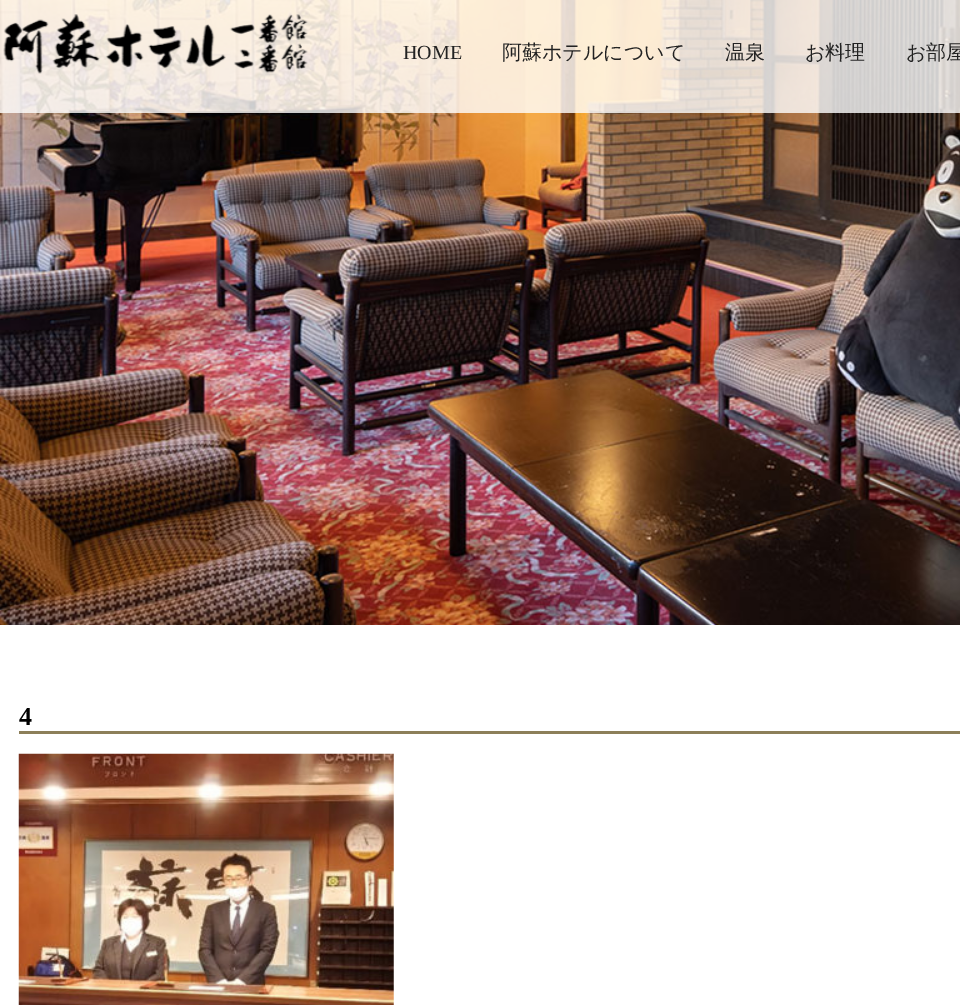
%!PS-Adobe-3.0
%%BoundingBox: 0 0 960 1005
%%LanguageLevel: 3
%%Pages: 1
%%EndComments
%%BeginProlog
/setalpha { dup .setfillconstantalpha .setstrokeconstantalpha } def
/drawimage { 5 dict begin { /h /w /y /x /name } { exch def } forall
  gsave x y translate w h scale
  w h 8 [w 0 0 h 0 0] name (r) file false 3 colorimage grestore end } def
%%EndProlog
%%BeginSetup
<< /PageSize [960 1005] /PageUsesTransparency true >> setpagedevice
%%EndSetup
%%Page: 1 1
0 .pushpdf14devicefilter
0 1005 translate 1 -1 scale
4 setmiterlimit
1 setgray
0 0 960 1005 rectfill
(images/2.raw) 0 0 960 625 drawimage
0.8 setalpha
0 0 960 113 rectfill
1 setalpha
(images/1.raw) 3 14 305 60 drawimage
0.549 0.498 0.349 setrgbcolor
19 731 941 3 rectfill
(images/3.raw) 18 753 376 252 drawimage
/LiberationSerif-Regular [20 0 0 -20 0 0] selectfont
0.133 setgray
403 59 moveto (HOME) show
/WenQuanYiZenHei-Medium [20 0 0 -20 0 0] selectfont
502 59 moveto (阿蘇ホテルについて) show
725 59 moveto (温泉) show
805 59 moveto (お料理) show
906 59 moveto (お部屋) show
/LiberationSerif-Bold [26 0 0 -26 0 0] selectfont
0 setgray
19 725 moveto (4) show
.poppdf14devicefilter showpage
%%EOF
